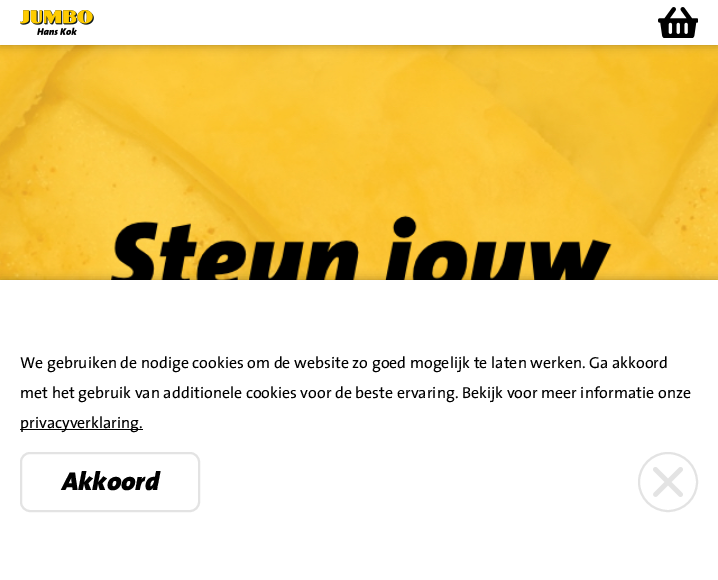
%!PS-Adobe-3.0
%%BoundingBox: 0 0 718 580
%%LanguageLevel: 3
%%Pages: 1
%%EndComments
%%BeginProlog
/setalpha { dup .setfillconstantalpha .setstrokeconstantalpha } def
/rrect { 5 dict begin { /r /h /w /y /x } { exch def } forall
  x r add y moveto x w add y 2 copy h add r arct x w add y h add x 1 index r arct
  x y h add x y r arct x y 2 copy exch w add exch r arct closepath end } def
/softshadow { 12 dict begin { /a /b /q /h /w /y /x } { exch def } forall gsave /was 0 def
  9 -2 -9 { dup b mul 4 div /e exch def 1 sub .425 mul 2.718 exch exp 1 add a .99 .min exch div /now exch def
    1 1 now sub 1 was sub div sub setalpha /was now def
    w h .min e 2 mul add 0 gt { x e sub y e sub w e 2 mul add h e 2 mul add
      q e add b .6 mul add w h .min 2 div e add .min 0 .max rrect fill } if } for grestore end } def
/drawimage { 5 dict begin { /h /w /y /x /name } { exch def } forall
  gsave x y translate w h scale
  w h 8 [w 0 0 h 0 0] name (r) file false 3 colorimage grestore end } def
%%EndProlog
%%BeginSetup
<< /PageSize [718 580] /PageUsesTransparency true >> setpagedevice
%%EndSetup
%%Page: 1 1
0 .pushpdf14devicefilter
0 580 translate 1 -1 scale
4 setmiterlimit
1 setgray
0 0 718 580 rectfill
(images/3.raw) 0 45 718 235 drawimage
0 setgray
0 0 718 45 0 5 0.3 softshadow
1 setgray
0 0 718 45 rectfill
(images/1.raw) 20 10 74 25 drawimage
(images/2.raw) 658 7 40 31 drawimage
0 setgray
0 280 718 300 0 5 0.3 softshadow
1 setgray
0 280 718 300 rectfill
0 setgray
20 429 123 1 rectfill
0.89 setgray
2 setlinewidth
21 453 178 58 9 rrect stroke
newpath 668 482 29 0 360 arc closepath stroke
(images/4.raw) 653 467 30 30 drawimage
/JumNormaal-Regular [16 0 0 -16 0 0] selectfont
0 setgray
20 368 moveto (We gebruiken de nodige cookies om de website zo goed mogelijk te laten werken. Ga akkoord) show
20 398 moveto (met het gebruik van additionele cookies voor de beste ervaring. Bekijk voor meer informatie onze) show
20 428 moveto (privacyverklaring.) show
/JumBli-Italic [26 0 0 -26 0 0] selectfont
62 490 moveto (Akkoord) show
.poppdf14devicefilter showpage
%%EOF
